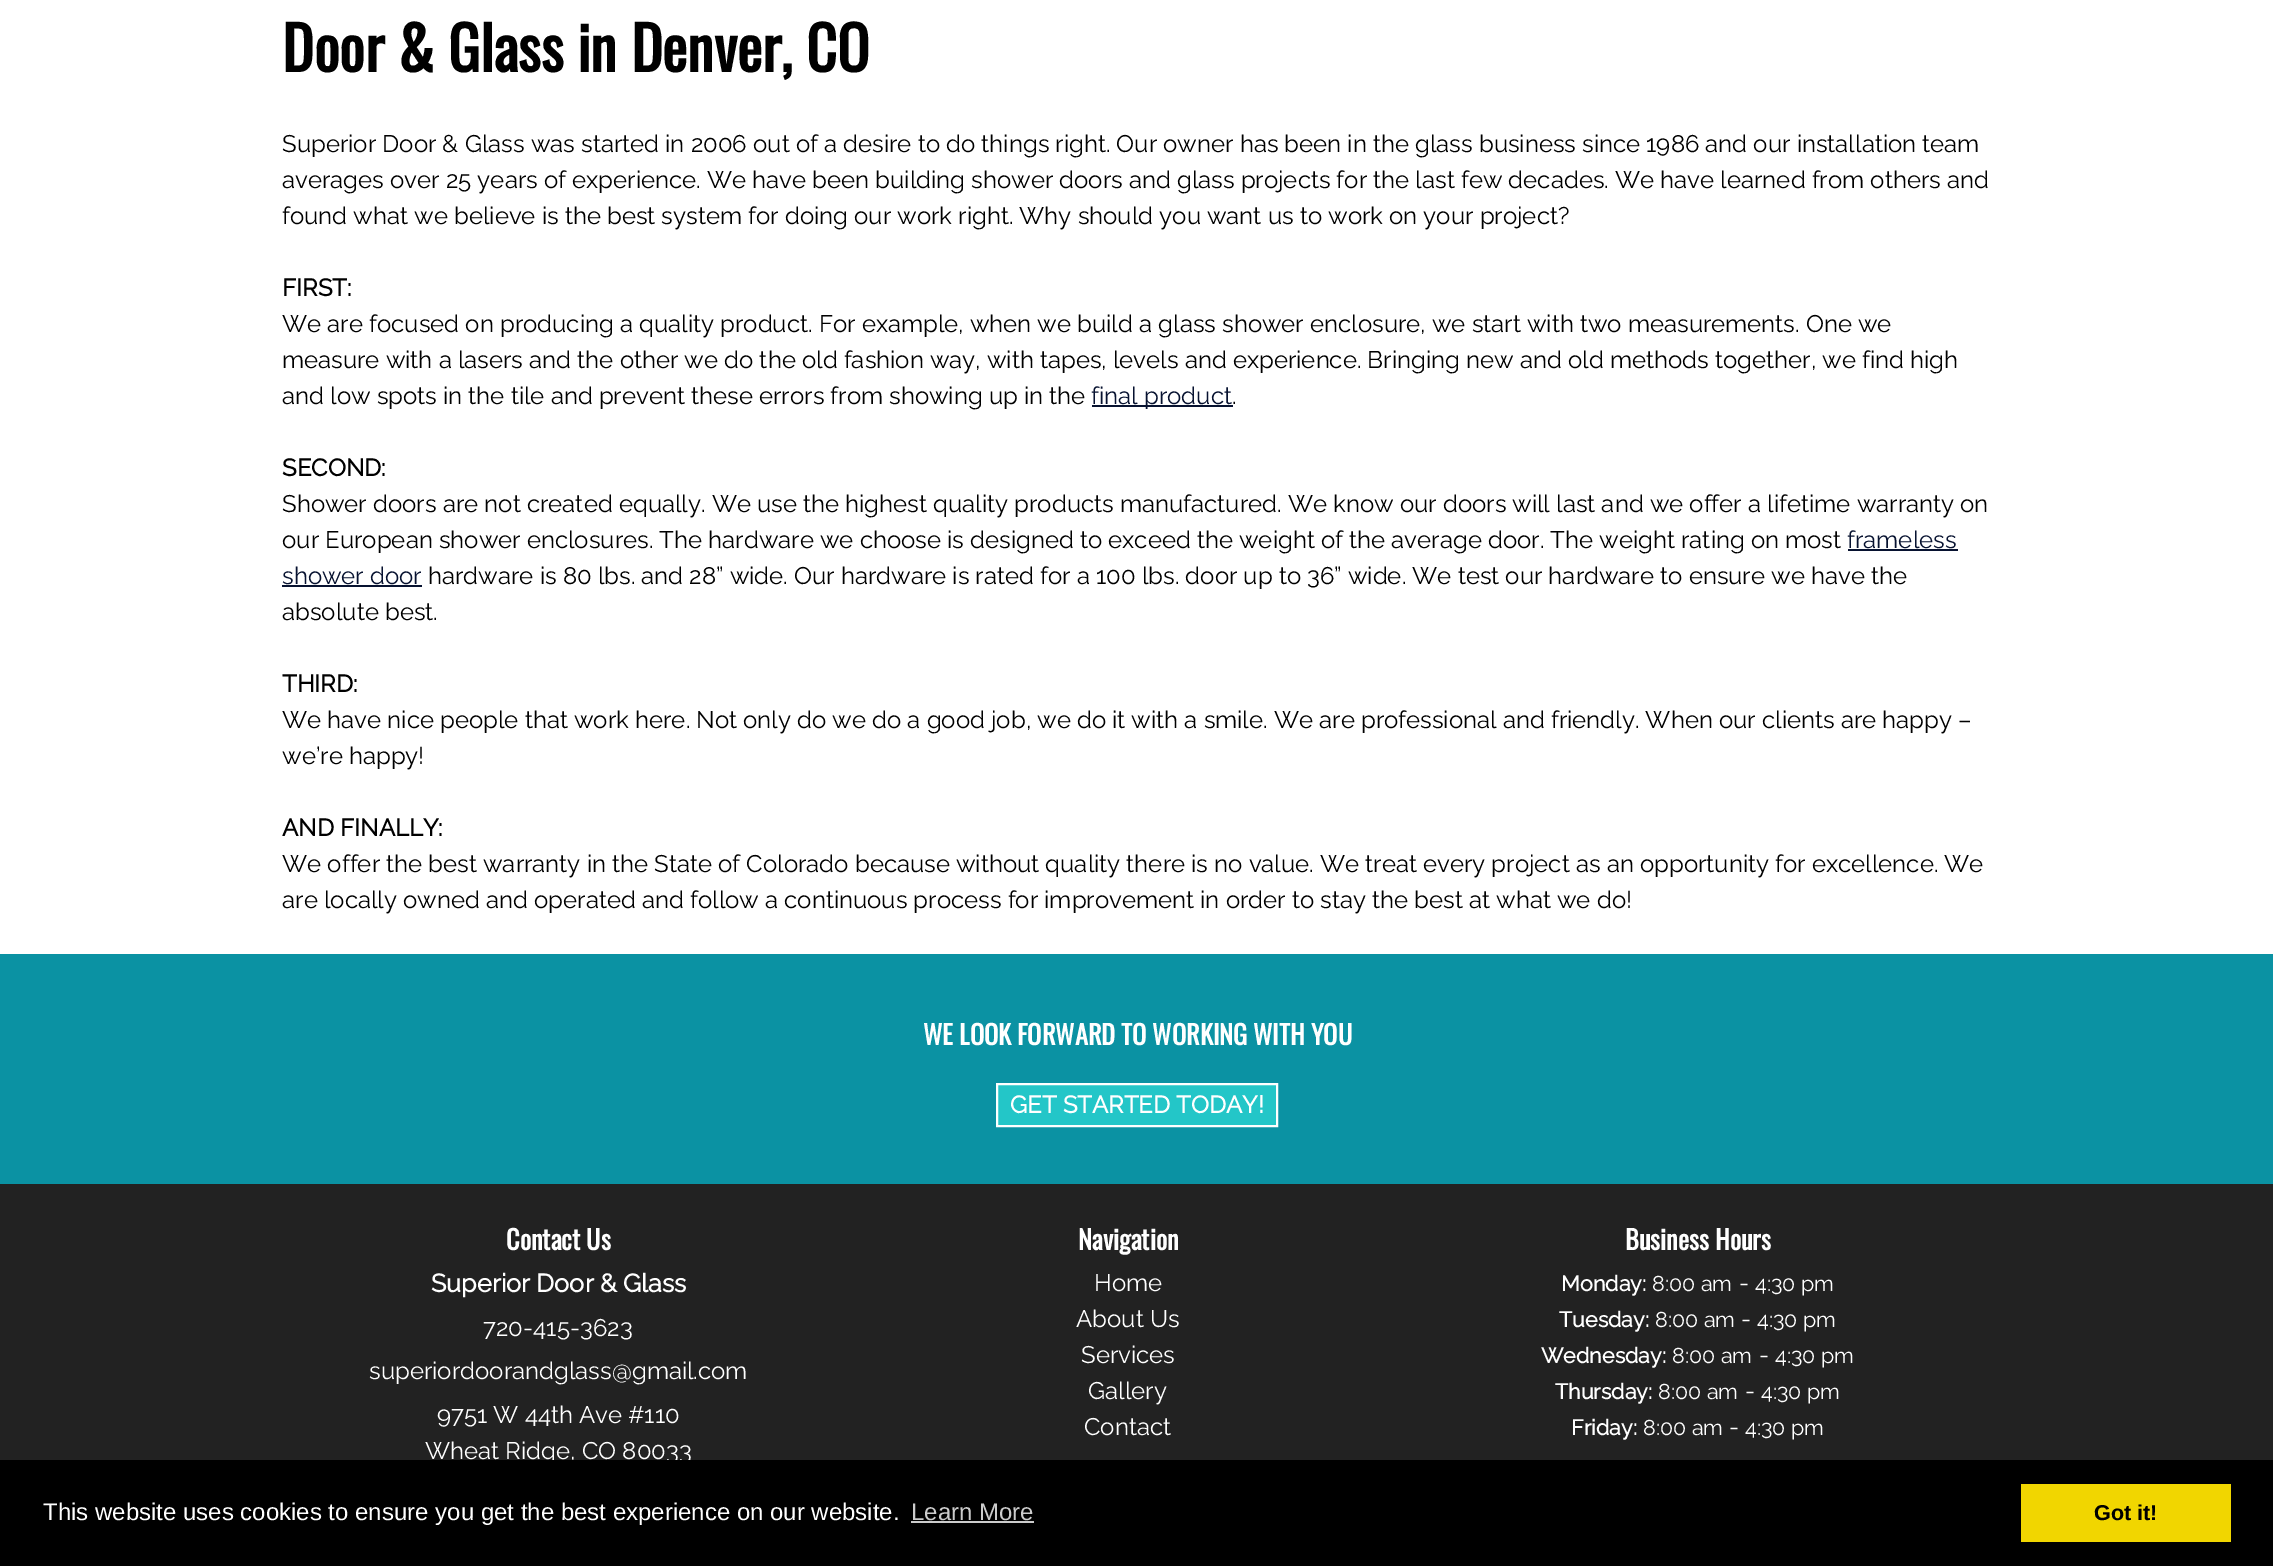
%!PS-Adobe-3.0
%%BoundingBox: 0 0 2273 1566
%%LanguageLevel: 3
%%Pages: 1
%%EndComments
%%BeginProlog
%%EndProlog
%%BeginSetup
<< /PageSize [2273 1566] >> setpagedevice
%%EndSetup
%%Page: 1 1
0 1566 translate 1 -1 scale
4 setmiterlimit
1 setgray
0 0 2273 1566 rectfill
0.027 0.071 0.188 setrgbcolor
1092 405 141 2 rectfill
1848 549 110 2 rectfill
282 585 140 2 rectfill
0.043 0.573 0.639 setrgbcolor
0 954 2273 230 rectfill
0.137 0.776 0.784 setrgbcolor
newpath 997 1084 moveto 1277 1084 lineto 1277 1126 lineto 997 1126 lineto closepath gsave fill grestore
1 setgray
2 setlinewidth
stroke
0.133 setgray
0 1184 2273 276 rectfill
/Oswald-Bold [60 0 0 -60 0 0] selectfont
0 setgray
282 72 moveto (Door & Glass in Denver, CO) show
/Raleway-Thin [24 0 0 -24 0 0] selectfont
282 152 moveto (Superior Door & Glass was started in 2006 out of a desire to do things right. Our owner has been in the glass business since 1986 and our installation team) show
282 188 moveto (averages over 25 years of experience. We have been building shower doors and glass projects for the last few decades. We have learned from others and) show
282 224 moveto (found what we believe is the best system for doing our work right. Why should you want us to work on your project?) show
/Raleway-Bold [24 0 0 -24 0 0] selectfont
282 296 moveto (FIRST:) show
/Raleway-Thin [24 0 0 -24 0 0] selectfont
282 332 moveto (We are focused on producing a quality product. For example, when we build a glass shower enclosure, we start with two measurements. One we) show
282 368 moveto (measure with a lasers and the other we do the old fashion way, with tapes, levels and experience. Bringing new and old methods together, we find high) show
282 404 moveto (and low spots in the tile and prevent these errors from showing up in the) show
0.027 0.071 0.188 setrgbcolor
1091 404 moveto (final product) show
0 setgray
1232 404 moveto (.) show
/Raleway-Bold [24 0 0 -24 0 0] selectfont
282 476 moveto (SECOND:) show
/Raleway-Thin [24 0 0 -24 0 0] selectfont
282 512 moveto (Shower doors are not created equally. We use the highest quality products manufactured. We know our doors will last and we offer a lifetime warranty on) show
282 548 moveto (our European shower enclosures. The hardware we choose is designed to exceed the weight of the average door. The weight rating on most) show
0.027 0.071 0.188 setrgbcolor
1847 548 moveto (frameless) show
282 584 moveto (shower door) show
0 setgray
428 584 moveto (hardware is 80 lbs. and 28” wide. Our hardware is rated for a 100 lbs. door up to 36” wide. We test our hardware to ensure we have the) show
282 620 moveto (absolute best.) show
/Raleway-Bold [24 0 0 -24 0 0] selectfont
282 692 moveto (THIRD:) show
/Raleway-Thin [24 0 0 -24 0 0] selectfont
282 728 moveto (We have nice people that work here. Not only do we do a good job, we do it with a smile. We are professional and friendly. When our clients are happy –) show
282 764 moveto (we’re happy!) show
/Raleway-Bold [24 0 0 -24 0 0] selectfont
282 836 moveto (AND FINALLY:) show
/Raleway-Thin [24 0 0 -24 0 0] selectfont
282 872 moveto (We offer the best warranty in the State of Colorado because without quality there is no value. We treat every project as an opportunity for excellence. We) show
282 908 moveto (are locally owned and operated and follow a continuous process for improvement in order to stay the best at what we do!) show
/Oswald-Bold [26.4 0 0 -26.4 0 0] selectfont
1 setgray
923 1045 moveto (WE LOOK FORWARD TO WORKING WITH YOU) show
/Raleway-Bold [24 0 0 -24 0 0] selectfont
1010 1113 moveto (GET STARTED TODAY!) show
/Oswald-Bold [26.4 0 0 -26.4 0 0] selectfont
506 1250 moveto (Contact Us) show
/Raleway-Bold [25.25 0 0 -25.25 0 0] selectfont
431 1292 moveto (Superior Door & Glass) show
/Raleway-Thin [24 0 0 -24 0 0] selectfont
483 1336 moveto (720-415-3623) show
369 1379 moveto (superiordoorandglass@gmail.com) show
437 1423 moveto (9751 W 44th Ave #110) show
425 1459 moveto (Wheat Ridge, CO 80033) show
/Oswald-Bold [26.4 0 0 -26.4 0 0] selectfont
1078 1250 moveto (Navigation) show
/Raleway-Thin [24 0 0 -24 0 0] selectfont
1094 1291 moveto (Home) show
1076 1327 moveto (About Us) show
1081 1363 moveto (Services) show
1088 1399 moveto (Gallery) show
1084 1435 moveto (Contact) show
/Oswald-Bold [26.4 0 0 -26.4 0 0] selectfont
1625 1250 moveto (Business Hours) show
/Raleway-Bold [21.5 0 0 -21.5 0 0] selectfont
1561 1291 moveto (Monday:) show
/Raleway-Thin [21.5 0 0 -21.5 0 0] selectfont
1652 1291 moveto (8:00 am) show
/Raleway-Thin [24 0 0 -24 0 0] selectfont
1739 1291 moveto (-) show
/Raleway-Thin [21.5 0 0 -21.5 0 0] selectfont
1755 1291 moveto (4:30 pm) show
/Raleway-Bold [21.5 0 0 -21.5 0 0] selectfont
1559 1327 moveto (Tuesday:) show
/Raleway-Thin [21.5 0 0 -21.5 0 0] selectfont
1655 1327 moveto (8:00 am) show
/Raleway-Thin [24 0 0 -24 0 0] selectfont
1741 1327 moveto (-) show
/Raleway-Thin [21.5 0 0 -21.5 0 0] selectfont
1757 1327 moveto (4:30 pm) show
/Raleway-Bold [21.5 0 0 -21.5 0 0] selectfont
1541 1363 moveto (Wednesday:) show
/Raleway-Thin [21.5 0 0 -21.5 0 0] selectfont
1672 1363 moveto (8:00 am) show
/Raleway-Thin [24 0 0 -24 0 0] selectfont
1759 1363 moveto (-) show
/Raleway-Thin [21.5 0 0 -21.5 0 0] selectfont
1775 1363 moveto (4:30 pm) show
/Raleway-Bold [21.5 0 0 -21.5 0 0] selectfont
1555 1399 moveto (Thursday:) show
/Raleway-Thin [21.5 0 0 -21.5 0 0] selectfont
1658 1399 moveto (8:00 am) show
/Raleway-Thin [24 0 0 -24 0 0] selectfont
1745 1399 moveto (-) show
/Raleway-Thin [21.5 0 0 -21.5 0 0] selectfont
1761 1399 moveto (4:30 pm) show
/Raleway-Bold [21.5 0 0 -21.5 0 0] selectfont
1571 1435 moveto (Friday:) show
/Raleway-Thin [21.5 0 0 -21.5 0 0] selectfont
1643 1435 moveto (8:00 am) show
/Raleway-Thin [24 0 0 -24 0 0] selectfont
1729 1435 moveto (-) show
/Raleway-Thin [21.5 0 0 -21.5 0 0] selectfont
1745 1435 moveto (4:30 pm) show
0 setgray
0 1460 2273 106 rectfill
/LiberationSans-Regular [24 0 0 -24 0 0] selectfont
1 setgray
43 1520 moveto (This website uses cookies to ensure you get the best experience on our website.) show
0.8 setgray
911 1520 moveto (Learn More) show
911 1521 123 2 rectfill
0.945 0.839 0 setrgbcolor
2021 1484 210 58 rectfill
/LiberationSans-Bold [21.5 0 0 -21.5 0 0] selectfont
0 setgray
2094 1520 moveto (Got it!) show
showpage
%%EOF
